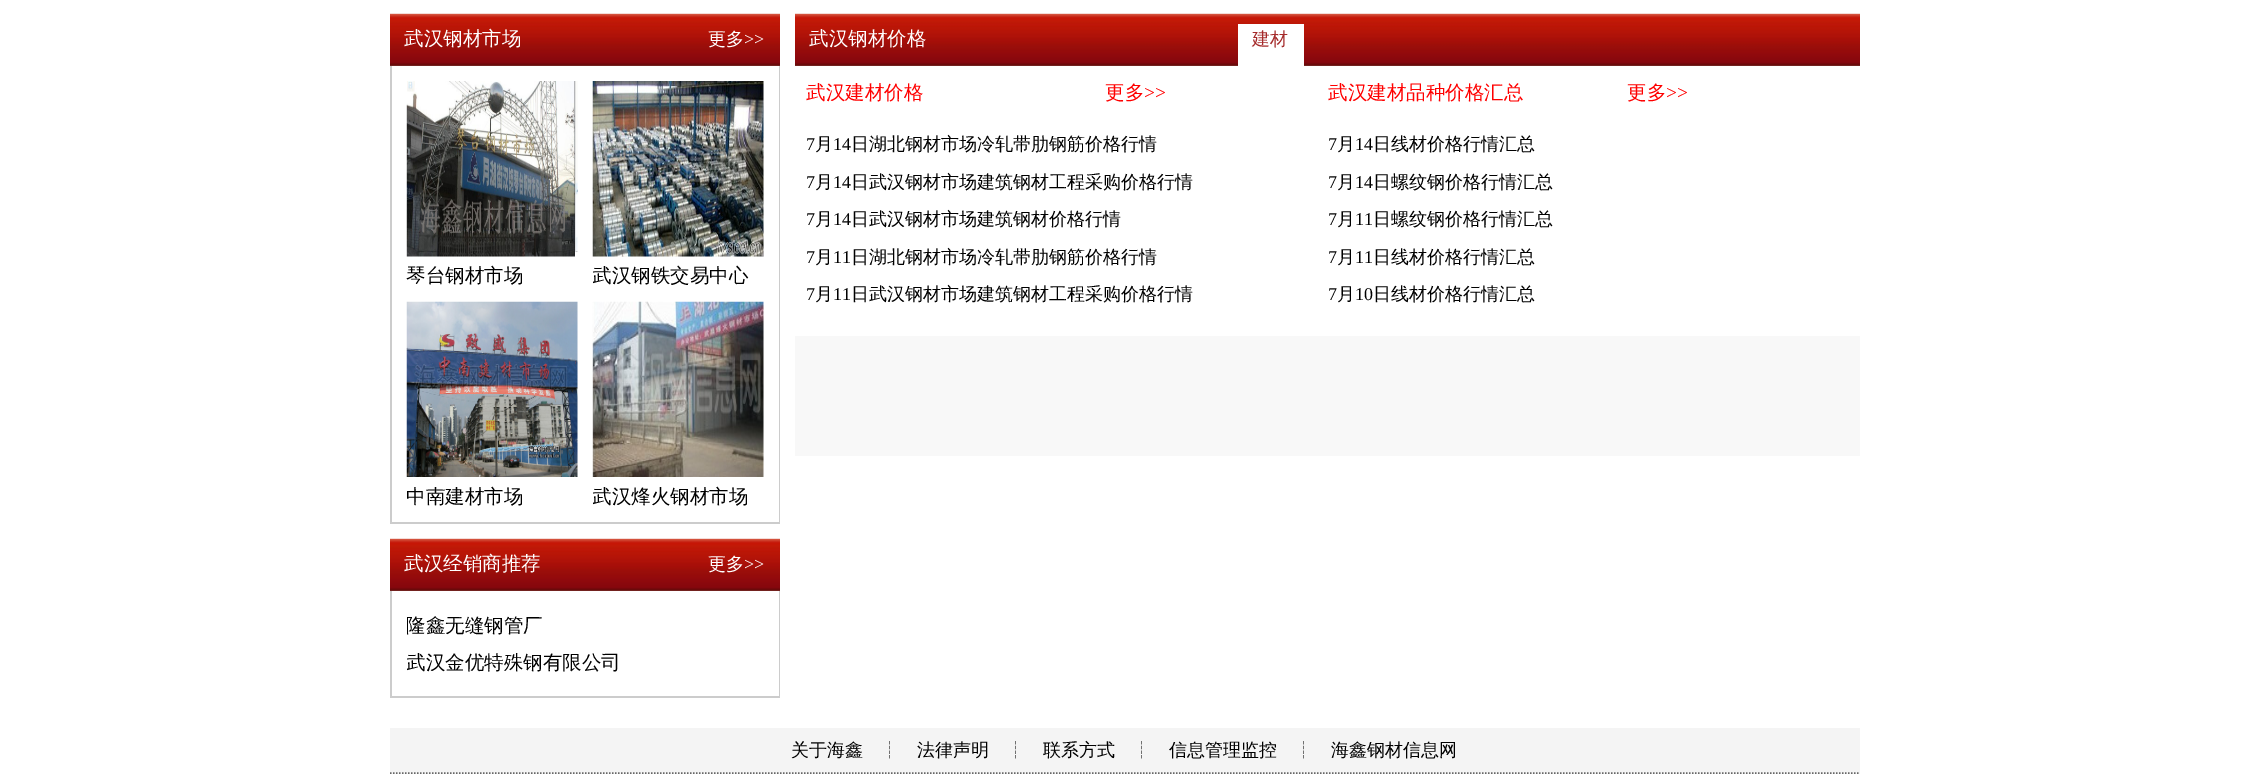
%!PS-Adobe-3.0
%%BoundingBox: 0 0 2248 775
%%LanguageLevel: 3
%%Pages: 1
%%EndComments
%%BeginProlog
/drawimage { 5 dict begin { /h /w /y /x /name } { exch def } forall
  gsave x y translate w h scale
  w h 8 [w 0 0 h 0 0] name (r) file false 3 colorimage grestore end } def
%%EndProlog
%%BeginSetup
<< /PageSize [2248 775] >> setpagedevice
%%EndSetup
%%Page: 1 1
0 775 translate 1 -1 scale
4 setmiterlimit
1 setgray
0 0 2248 775 rectfill
(images/1.raw) 390 13 390 53 drawimage
0.8 setgray
779 66 1 458 rectfill
390 522 390 2 rectfill
390 66 2 458 rectfill
(images/2.raw) 406 81 172 176 drawimage
(images/3.raw) 592 81 172 176 drawimage
(images/4.raw) 406 301 172 176 drawimage
(images/5.raw) 592 301 172 176 drawimage
(images/6.raw) 390 538 390 53 drawimage
779 591 1 107 rectfill
390 696 390 2 rectfill
390 591 2 107 rectfill
(images/7.raw) 795 13 1065 53 drawimage
1 setgray
1238 24 66 42 rectfill
0.973 setgray
795 336 1065 120 rectfill
0.957 setgray
390 728 1470 46 rectfill
0.4 setgray
1.5 setlinewidth
[1.5 1.5] 0 setdash
newpath 390 773 moveto 1860 773 lineto stroke
/WenQuanYiZenHei-Medium [19.5 0 0 -19.5 0 0] selectfont
1 setgray
404 45 moveto (武汉钢材市场) show
/WenQuanYiZenHei-Medium [18 0 0 -18 0 0] selectfont
708 45 moveto (更多) show
/LiberationSerif-Regular [18 0 0 -18 0 0] selectfont
744 45 moveto (>>) show
/WenQuanYiZenHei-Medium [19.5 0 0 -19.5 0 0] selectfont
0 setgray
406 282 moveto (琴台钢材市场) show
gsave
593 81 186 221 rectclip
592 282 moveto (武汉钢铁交易中心) show
grestore
gsave
407 302 186 220 rectclip
406 503 moveto (中南建材市场) show
grestore
gsave
593 302 186 220 rectclip
592 503 moveto (武汉烽火钢材市场) show
grestore
1 setgray
404 570 moveto (武汉经销商推荐) show
/WenQuanYiZenHei-Medium [18 0 0 -18 0 0] selectfont
708 570 moveto (更多) show
/LiberationSerif-Regular [18 0 0 -18 0 0] selectfont
744 570 moveto (>>) show
gsave
407 606 357 38 rectclip
/WenQuanYiZenHei-Medium [19.5 0 0 -19.5 0 0] selectfont
0 setgray
406 632 moveto (隆鑫无缝钢管厂) show
grestore
gsave
407 644 357 37 rectclip
/WenQuanYiZenHei-Medium [19.5 0 0 -19.5 0 0] selectfont
0 setgray
406 669 moveto (武汉金优特殊钢有限公司) show
grestore
/WenQuanYiZenHei-Medium [19.5 0 0 -19.5 0 0] selectfont
809 45 moveto (武汉钢材价格) show
/WenQuanYiZenHei-Medium [18 0 0 -18 0 0] selectfont
0.647 0.165 0.165 setrgbcolor
1252 45 moveto (建材) show
/WenQuanYiZenHei-Medium [19.5 0 0 -19.5 0 0] selectfont
1 0 0 setrgbcolor
806 99 moveto (武汉建材价格) show
1105 99 moveto (更多) show
/LiberationSerif-Regular [19.5 0 0 -19.5 0 0] selectfont
1144 99 moveto (>>) show
/LiberationSerif-Regular [18 0 0 -18 0 0] selectfont
0 setgray
806 150 moveto (7) show
/WenQuanYiZenHei-Medium [18 0 0 -18 0 0] selectfont
815 150 moveto (月) show
/LiberationSerif-Regular [18 0 0 -18 0 0] selectfont
833 150 moveto (14) show
/WenQuanYiZenHei-Medium [18 0 0 -18 0 0] selectfont
851 150 moveto (日湖北钢材市场冷轧带肋钢筋价格行情) show
/LiberationSerif-Regular [18 0 0 -18 0 0] selectfont
806 188 moveto (7) show
/WenQuanYiZenHei-Medium [18 0 0 -18 0 0] selectfont
815 188 moveto (月) show
/LiberationSerif-Regular [18 0 0 -18 0 0] selectfont
833 188 moveto (14) show
/WenQuanYiZenHei-Medium [18 0 0 -18 0 0] selectfont
851 188 moveto (日武汉钢材市场建筑钢材工程采购价格行情) show
/LiberationSerif-Regular [18 0 0 -18 0 0] selectfont
806 225 moveto (7) show
/WenQuanYiZenHei-Medium [18 0 0 -18 0 0] selectfont
815 225 moveto (月) show
/LiberationSerif-Regular [18 0 0 -18 0 0] selectfont
833 225 moveto (14) show
/WenQuanYiZenHei-Medium [18 0 0 -18 0 0] selectfont
851 225 moveto (日武汉钢材市场建筑钢材价格行情) show
/LiberationSerif-Regular [18 0 0 -18 0 0] selectfont
806 263 moveto (7) show
/WenQuanYiZenHei-Medium [18 0 0 -18 0 0] selectfont
815 263 moveto (月) show
/LiberationSerif-Regular [18 0 0 -18 0 0] selectfont
833 263 moveto (11) show
/WenQuanYiZenHei-Medium [18 0 0 -18 0 0] selectfont
851 263 moveto (日湖北钢材市场冷轧带肋钢筋价格行情) show
/LiberationSerif-Regular [18 0 0 -18 0 0] selectfont
806 300 moveto (7) show
/WenQuanYiZenHei-Medium [18 0 0 -18 0 0] selectfont
815 300 moveto (月) show
/LiberationSerif-Regular [18 0 0 -18 0 0] selectfont
833 300 moveto (11) show
/WenQuanYiZenHei-Medium [18 0 0 -18 0 0] selectfont
851 300 moveto (日武汉钢材市场建筑钢材工程采购价格行情) show
/WenQuanYiZenHei-Medium [19.5 0 0 -19.5 0 0] selectfont
1 0 0 setrgbcolor
1328 99 moveto (武汉建材品种价格汇总) show
1627 99 moveto (更多) show
/LiberationSerif-Regular [19.5 0 0 -19.5 0 0] selectfont
1666 99 moveto (>>) show
/LiberationSerif-Regular [18 0 0 -18 0 0] selectfont
0 setgray
1328 150 moveto (7) show
/WenQuanYiZenHei-Medium [18 0 0 -18 0 0] selectfont
1337 150 moveto (月) show
/LiberationSerif-Regular [18 0 0 -18 0 0] selectfont
1355 150 moveto (14) show
/WenQuanYiZenHei-Medium [18 0 0 -18 0 0] selectfont
1373 150 moveto (日线材价格行情汇总) show
/LiberationSerif-Regular [18 0 0 -18 0 0] selectfont
1328 188 moveto (7) show
/WenQuanYiZenHei-Medium [18 0 0 -18 0 0] selectfont
1337 188 moveto (月) show
/LiberationSerif-Regular [18 0 0 -18 0 0] selectfont
1355 188 moveto (14) show
/WenQuanYiZenHei-Medium [18 0 0 -18 0 0] selectfont
1373 188 moveto (日螺纹钢价格行情汇总) show
/LiberationSerif-Regular [18 0 0 -18 0 0] selectfont
1328 225 moveto (7) show
/WenQuanYiZenHei-Medium [18 0 0 -18 0 0] selectfont
1337 225 moveto (月) show
/LiberationSerif-Regular [18 0 0 -18 0 0] selectfont
1355 225 moveto (11) show
/WenQuanYiZenHei-Medium [18 0 0 -18 0 0] selectfont
1373 225 moveto (日螺纹钢价格行情汇总) show
/LiberationSerif-Regular [18 0 0 -18 0 0] selectfont
1328 263 moveto (7) show
/WenQuanYiZenHei-Medium [18 0 0 -18 0 0] selectfont
1337 263 moveto (月) show
/LiberationSerif-Regular [18 0 0 -18 0 0] selectfont
1355 263 moveto (11) show
/WenQuanYiZenHei-Medium [18 0 0 -18 0 0] selectfont
1373 263 moveto (日线材价格行情汇总) show
/LiberationSerif-Regular [18 0 0 -18 0 0] selectfont
1328 300 moveto (7) show
/WenQuanYiZenHei-Medium [18 0 0 -18 0 0] selectfont
1337 300 moveto (月) show
/LiberationSerif-Regular [18 0 0 -18 0 0] selectfont
1355 300 moveto (10) show
/WenQuanYiZenHei-Medium [18 0 0 -18 0 0] selectfont
1373 300 moveto (日线材价格行情汇总) show
791 756 moveto (关于海鑫) show
881 756 moveto (┊) show
917 756 moveto (法律声明) show
1007 756 moveto (┊) show
1043 756 moveto (联系方式) show
1133 756 moveto (┊) show
1169 756 moveto (信息管理监控) show
1295 756 moveto (┊) show
1331 756 moveto (海鑫钢材信息网) show
showpage
%%EOF
